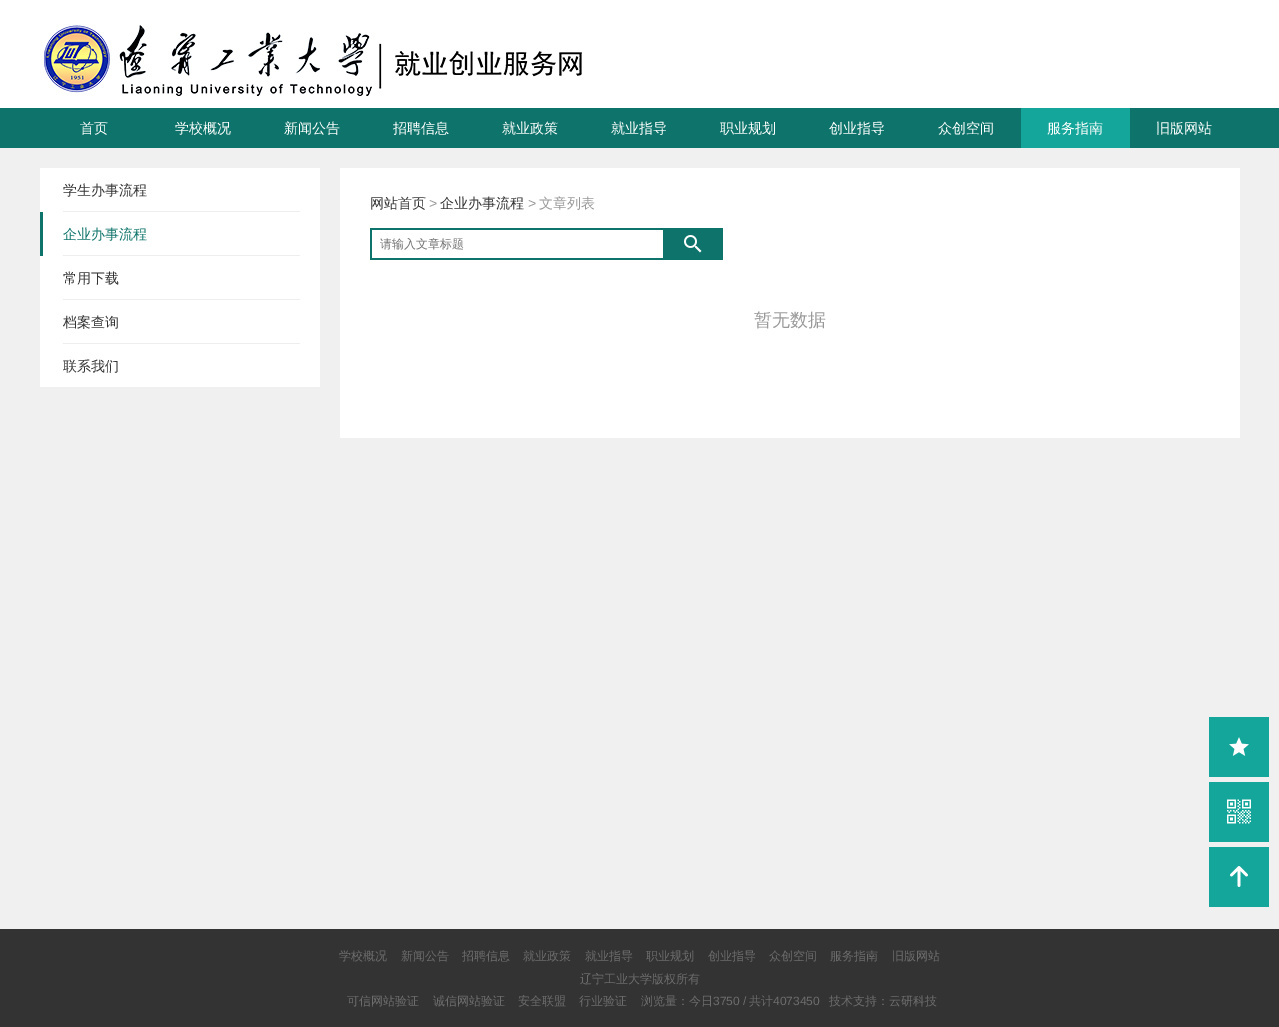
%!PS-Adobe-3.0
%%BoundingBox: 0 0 1279 1027
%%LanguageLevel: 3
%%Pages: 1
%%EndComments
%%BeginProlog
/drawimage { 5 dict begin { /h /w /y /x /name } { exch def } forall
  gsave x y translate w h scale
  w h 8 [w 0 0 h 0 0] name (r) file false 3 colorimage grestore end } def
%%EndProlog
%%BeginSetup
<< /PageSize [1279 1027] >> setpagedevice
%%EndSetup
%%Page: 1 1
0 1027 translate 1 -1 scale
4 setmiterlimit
0.941 setgray
0 0 1279 1027 rectfill
1 setgray
0 0 1279 108 rectfill
(images/1.raw) 44 25 538 71 drawimage
0.055 0.455 0.42 setrgbcolor
0 108 1279 40 rectfill
0.078 0.651 0.604 setrgbcolor
1021 108 109 40 rectfill
1 setgray
40 168 280 219 rectfill
0.933 setgray
63 211 237 1 rectfill
0.055 0.455 0.42 setrgbcolor
40 212 3 44 rectfill
0.933 setgray
63 255 237 1 rectfill
63 299 237 1 rectfill
63 343 237 1 rectfill
1 setgray
340 168 900 270 rectfill
0.055 0.455 0.42 setrgbcolor
370 228 293 2 rectfill
370 258 293 2 rectfill
370 228 2 32 rectfill
663 228 60 32 rectfill
(images/2.raw) 684 235 18 18 drawimage
0.078 0.651 0.604 setrgbcolor
1209 717 60 60 rectfill
(images/3.raw) 1229 737 20 19 drawimage
1209 782 60 60 rectfill
(images/4.raw) 1227 799 24 25 drawimage
1209 847 60 60 rectfill
(images/5.raw) 1230 866 18 21 drawimage
0.2 setgray
0 929 1279 98 rectfill
/WenQuanYiZenHei-Medium [14 0 0 -14 0 0] selectfont
1 setgray
80 133 moveto (首页) show
175 133 moveto (学校概况) show
284 133 moveto (新闻公告) show
393 133 moveto (招聘信息) show
502 133 moveto (就业政策) show
611 133 moveto (就业指导) show
720 133 moveto (职业规划) show
829 133 moveto (创业指导) show
938 133 moveto (众创空间) show
1047 133 moveto (服务指南) show
1156 133 moveto (旧版网站) show
0.2 setgray
63 195 moveto (学生办事流程) show
0.055 0.455 0.42 setrgbcolor
63 239 moveto (企业办事流程) show
0.2 setgray
63 283 moveto (常用下载) show
63 327 moveto (档案查询) show
63 371 moveto (联系我们) show
370 208 moveto (网站首页) show
/LiberationSans-Regular [14 0 0 -14 0 0] selectfont
0.6 setgray
429 208 moveto (>) show
/WenQuanYiZenHei-Medium [14 0 0 -14 0 0] selectfont
0.2 setgray
440 208 moveto (企业办事流程) show
/LiberationSans-Regular [14 0 0 -14 0 0] selectfont
0.6 setgray
528 208 moveto (>) show
/WenQuanYiZenHei-Medium [14 0 0 -14 0 0] selectfont
539 208 moveto (文章列表) show
/WenQuanYiZenHei-Medium [12 0 0 -12 0 0] selectfont
0.459 setgray
380 248 moveto (请输入文章标题) show
/WenQuanYiZenHei-Medium [18 0 0 -18 0 0] selectfont
0.6 setgray
754 326 moveto (暂无数据) show
/WenQuanYiZenHei-Medium [12 0 0 -12 0 0] selectfont
0.427 setgray
339 960 moveto (学校概况) show
401 960 moveto (新闻公告) show
462 960 moveto (招聘信息) show
523 960 moveto (就业政策) show
585 960 moveto (就业指导) show
646 960 moveto (职业规划) show
708 960 moveto (创业指导) show
769 960 moveto (众创空间) show
830 960 moveto (服务指南) show
892 960 moveto (旧版网站) show
580 983 moveto (辽宁工业大学版权所有) show
347 1005 moveto (可信网站验证) show
433 1005 moveto (诚信网站验证) show
518 1005 moveto (安全联盟) show
579 1005 moveto (行业验证) show
641 1005 moveto (浏览量：今日) show
/LiberationSans-Regular [12 0 0 -12 0 0] selectfont
713 1005 moveto (3750 /) show
/WenQuanYiZenHei-Medium [12 0 0 -12 0 0] selectfont
749 1005 moveto (共计) show
/LiberationSans-Regular [12 0 0 -12 0 0] selectfont
773 1005 moveto (4073450) show
/WenQuanYiZenHei-Medium [12 0 0 -12 0 0] selectfont
829 1005 moveto (技术支持：云研科技) show
showpage
%%EOF
